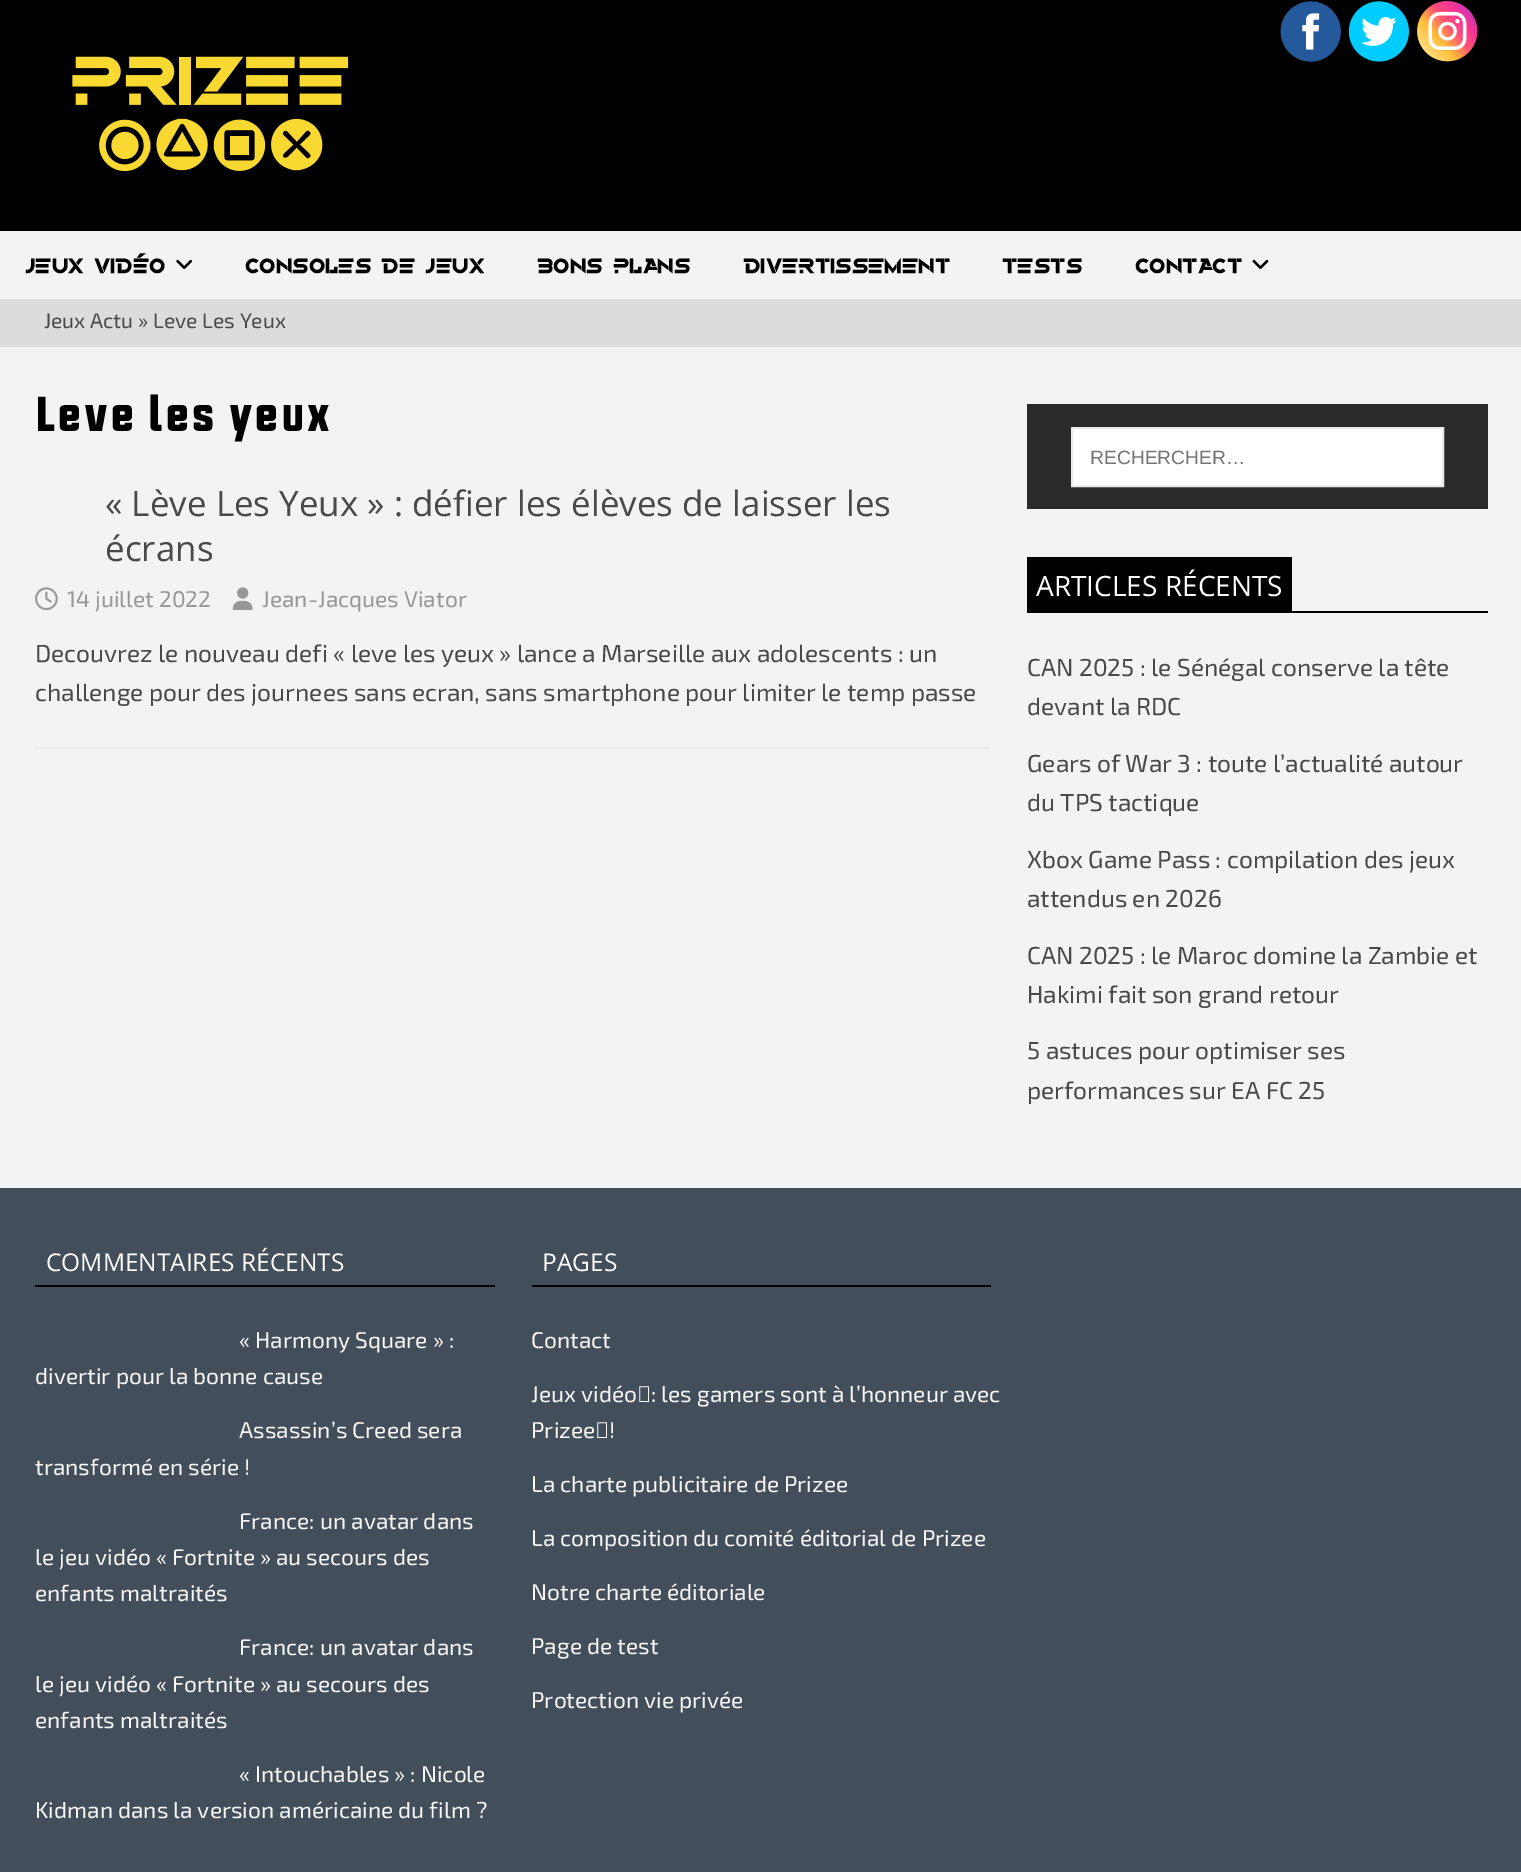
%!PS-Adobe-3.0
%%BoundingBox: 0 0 1521 1872
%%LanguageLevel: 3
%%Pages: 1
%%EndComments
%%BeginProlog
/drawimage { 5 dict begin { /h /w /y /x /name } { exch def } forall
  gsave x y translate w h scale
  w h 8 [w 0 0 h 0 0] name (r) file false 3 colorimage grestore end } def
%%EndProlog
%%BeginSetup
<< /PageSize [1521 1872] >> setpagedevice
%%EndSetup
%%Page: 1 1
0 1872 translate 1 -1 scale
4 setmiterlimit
0.953 setgray
0 0 1521 1872 rectfill
0 setgray
0 0 1521 231 rectfill
(images/1.raw) 1280 1 61 61 drawimage
(images/2.raw) 1348 1 61 61 drawimage
(images/3.raw) 1417 1 61 61 drawimage
(images/4.raw) 72 56 277 116 drawimage
(images/5.raw) 176 259 16 10 drawimage
(images/6.raw) 1252 259 17 10 drawimage
0.863 setgray
0 299 1521 48 rectfill
0.922 setgray
35 747 956 2 rectfill
(images/7.raw) 35 587 23 24 drawimage
(images/8.raw) 232 587 21 24 drawimage
0.165 setgray
1027 404 461 105 rectfill
1 setgray
newpath 1072 428 moveto 1443 428 lineto 1443 486 lineto 1072 486 lineto closepath gsave fill grestore
0.922 setgray
2 setlinewidth
stroke
0 setgray
1292 611 196 2 rectfill
1027 557 265 56 rectfill
0.263 0.306 0.357 setrgbcolor
0 1188 1521 684 rectfill
0 setgray
35 1285 460 2 rectfill
532 1285 459 2 rectfill
/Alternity-Bold [21 0 0 -21 0 0] selectfont
26 273 moveto (JEUX VIDÉO) show
246 273 moveto (CONSOLES DE JEUX) show
538 273 moveto (BONS PLANS) show
744 273 moveto (DIVERTISSEMENT) show
1003 273 moveto (TESTS) show
1136 273 moveto (CONTACT) show
/Exo2-Regular [21 0 0 -21 0 0] selectfont
0.286 setgray
44 328 moveto (Jeux Actu » Leve Les Yeux) show
/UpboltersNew-Regular [49 0 0 -49 0 0] selectfont
0 setgray
35 431 moveto 3.5 0 (Leve les yeux) ashow
/OpenSans-Regular [35 0 0 -35 0 0] selectfont
0.286 setgray
105 516 moveto (« Lève Les Yeux » : défier les élèves de laisser les) show
105 561 moveto (écrans) show
/Exo2-Regular [22.75 0 0 -22.75 0 0] selectfont
0.592 setgray
67 607 moveto (14 juillet 2022) show
262 607 moveto (Jean-Jacques Viator) show
/Exo2-Regular [24.5 0 0 -24.5 0 0] selectfont
0.286 setgray
35 662 moveto (Decouvrez le nouveau defi « leve les yeux » lance a Marseille aux adolescents : un) show
35 701 moveto (challenge pour des journees sans ecran, sans smartphone pour limiter le temp passe) show
/LiberationSans-Regular [19.25 0 0 -19.25 0 0] selectfont
0.459 setgray
1090 464 moveto (RECHERCHER…) show
/OpenSans-Regular [28 0 0 -28 0 0] selectfont
1 setgray
1036 596 moveto (ARTICLES RÉCENTS) show
/Exo2-Regular [24.5 0 0 -24.5 0 0] selectfont
0.286 setgray
1027 676 moveto (CAN 2025 : le Sénégal conserve la tête) show
1027 715 moveto (devant la RDC) show
1027 772 moveto (Gears of War 3 : toute l’actualité autour) show
1027 811 moveto (du TPS tactique) show
1027 868 moveto (Xbox Game Pass : compilation des jeux) show
1027 907 moveto (attendus en 2026) show
1027 964 moveto (CAN 2025 : le Maroc domine la Zambie et) show
1027 1003 moveto (Hakimi fait son grand retour) show
1027 1059 moveto (5 astuces pour optimiser ses) show
1027 1099 moveto (performances sur EA FC 25) show
/OpenSans-Regular [24.5 0 0 -24.5 0 0] selectfont
1 setgray
46 1271 moveto (COMMENTAIRES RÉCENTS) show
/Exo2-Regular [22.75 0 0 -22.75 0 0] selectfont
0.969 setgray
239 1348 moveto (« Harmony Square » :) show
35 1384 moveto (divertir pour la bonne cause) show
239 1438 moveto (Assassin’s Creed sera) show
35 1475 moveto (transformé en série !) show
239 1529 moveto (France: un avatar dans) show
35 1565 moveto (le jeu vidéo « Fortnite » au secours des) show
35 1601 moveto (enfants maltraités) show
239 1655 moveto (France: un avatar dans) show
35 1692 moveto (le jeu vidéo « Fortnite » au secours des) show
35 1728 moveto (enfants maltraités) show
239 1782 moveto (« Intouchables » : Nicole) show
35 1818 moveto (Kidman dans la version américaine du film ?) show
/OpenSans-Regular [24.5 0 0 -24.5 0 0] selectfont
1 setgray
542 1271 moveto (PAGES) show
/Exo2-Regular [22.75 0 0 -22.75 0 0] selectfont
0.969 setgray
531 1348 moveto (Contact) show
531 1402 moveto (Jeux vidéo : les gamers sont à l’honneur avec) show
531 1438 moveto (Prizee !) show
531 1492 moveto (La charte publicitaire de Prizee) show
531 1546 moveto (La composition du comité éditorial de Prizee) show
531 1600 moveto (Notre charte éditoriale) show
531 1654 moveto (Page de test) show
531 1708 moveto (Protection vie privée) show
showpage
%%EOF
